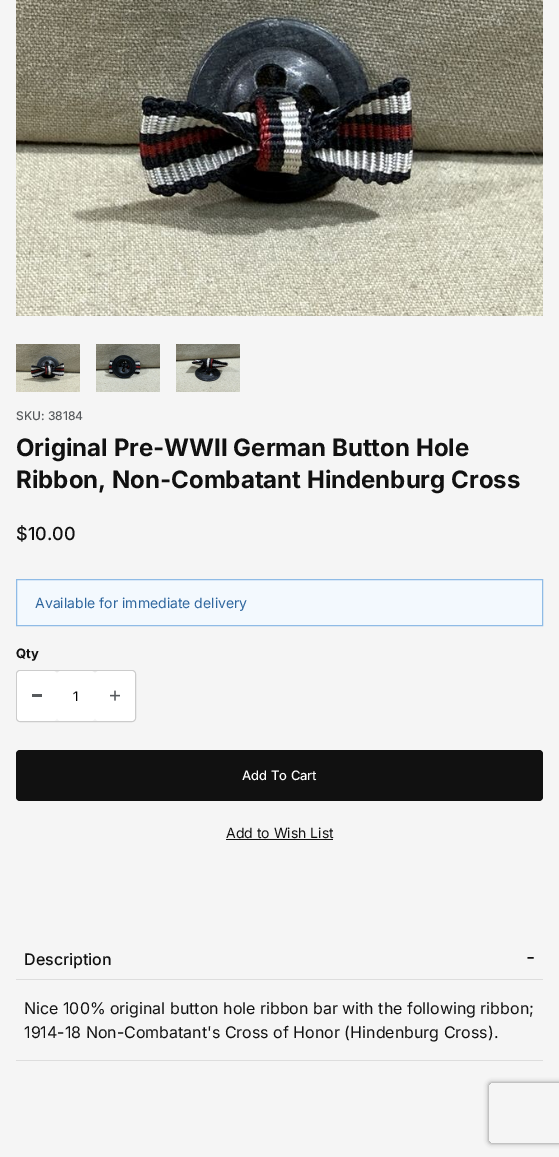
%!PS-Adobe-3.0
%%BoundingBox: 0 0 559 1157
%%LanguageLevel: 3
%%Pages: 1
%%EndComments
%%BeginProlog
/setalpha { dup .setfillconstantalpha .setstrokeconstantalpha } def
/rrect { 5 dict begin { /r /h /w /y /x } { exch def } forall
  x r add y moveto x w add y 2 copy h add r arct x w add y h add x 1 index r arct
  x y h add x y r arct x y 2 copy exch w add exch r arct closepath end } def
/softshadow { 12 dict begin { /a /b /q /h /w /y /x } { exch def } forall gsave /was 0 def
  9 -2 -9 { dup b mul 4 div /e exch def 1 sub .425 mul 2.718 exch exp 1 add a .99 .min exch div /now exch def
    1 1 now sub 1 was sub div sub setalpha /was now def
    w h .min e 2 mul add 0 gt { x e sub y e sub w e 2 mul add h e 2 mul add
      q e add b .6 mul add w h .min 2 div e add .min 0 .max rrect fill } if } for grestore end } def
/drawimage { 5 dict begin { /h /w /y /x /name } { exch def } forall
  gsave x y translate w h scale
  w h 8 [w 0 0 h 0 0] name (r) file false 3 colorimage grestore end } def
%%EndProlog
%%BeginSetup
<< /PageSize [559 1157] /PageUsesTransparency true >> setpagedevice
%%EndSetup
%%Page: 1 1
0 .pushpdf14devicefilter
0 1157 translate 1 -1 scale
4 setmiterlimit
0.961 setgray
0 0 559 1157 rectfill
(images/1.raw) 16 0 527 316 drawimage
(images/2.raw) 16 344 64 48 drawimage
(images/3.raw) 96 344 64 48 drawimage
(images/4.raw) 176 344 64 48 drawimage
0.953 0.976 0.996 setrgbcolor
newpath 16.5 579.5 moveto 542.5 579.5 lineto 542.5 625.5 lineto 16.5 625.5 lineto closepath gsave fill grestore
0.561 0.733 0.902 setrgbcolor
stroke
0.8 setgray
16.5 670.5 119 51 3.5 rrect stroke
1 setgray
17 671 40 50 4 rrect fill
0.341 0.353 0.365 setrgbcolor
32 694 10 3 rectfill
1 setgray
57 671 38 50 4 rrect fill
95 671 40 50 4 rrect fill
(images/5.raw) 110 690 10 11 drawimage
0.067 setgray
16 750 527 51 4 rrect fill
226 839 107 1 rectfill
0.867 setgray
16 979 527 1 rectfill
16 1060 527 1 rectfill
gsave
newpath 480 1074 moveto 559 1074 lineto 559 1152 lineto 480 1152 lineto closepath 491 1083 moveto 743 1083 lineto 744 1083 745 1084 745 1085 curveto 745 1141 lineto 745 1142 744 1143 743 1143 curveto 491 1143 lineto 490 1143 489 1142 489 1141 curveto 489 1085 lineto 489 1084 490 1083 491 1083 curveto closepath eoclip newpath
0.502 setgray
489 1083 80 60 2 2.5 1 softshadow
grestore
/Inter-Medium [12 0 0 -12 0 0] selectfont
0.341 0.353 0.365 setrgbcolor
16 420 moveto (SKU: 38184) show
/Inter-Bold [24 0 0 -24 0 0] selectfont
0.067 setgray
16 456 moveto (Original Pre-WWII German Button Hole) show
16 488 moveto (Ribbon, Non-Combatant Hindenburg Cross) show
/Inter-Medium [18 0 0 -18 0 0] selectfont
16 540 moveto ($10.00) show
/Inter-Regular [14 0 0 -14 0 0] selectfont
0.18 0.4 0.62 setrgbcolor
35 608 moveto (Available for immediate delivery) show
/Inter-Bold [13 0 0 -13 0 0] selectfont
0.067 setgray
16 658 moveto (Qty) show
/Inter-Regular [13 0 0 -13 0 0] selectfont
0 setgray
73 701 moveto (1) show
/Inter-Medium [13 0 0 -13 0 0] selectfont
1 setgray
242 780 moveto (Add To Cart) show
/Inter-Regular [14 0 0 -14 0 0] selectfont
0.067 setgray
226 838 moveto (Add to Wish List) show
/Inter-Medium [16 0 0 -16 0 0] selectfont
24 965 moveto (Description) show
/Inter-Medium [20 0 0 -20 0 0] selectfont
526 964 moveto (-) show
/Inter-Regular [16 0 0 -16 0 0] selectfont
24 1014 moveto (Nice 100% original button hole ribbon bar with the following ribbon;) show
24 1038 moveto (1914-18 Non-Combatant's Cross of Honor \(Hindenburg Cross\).) show
.poppdf14devicefilter showpage
%%EOF
